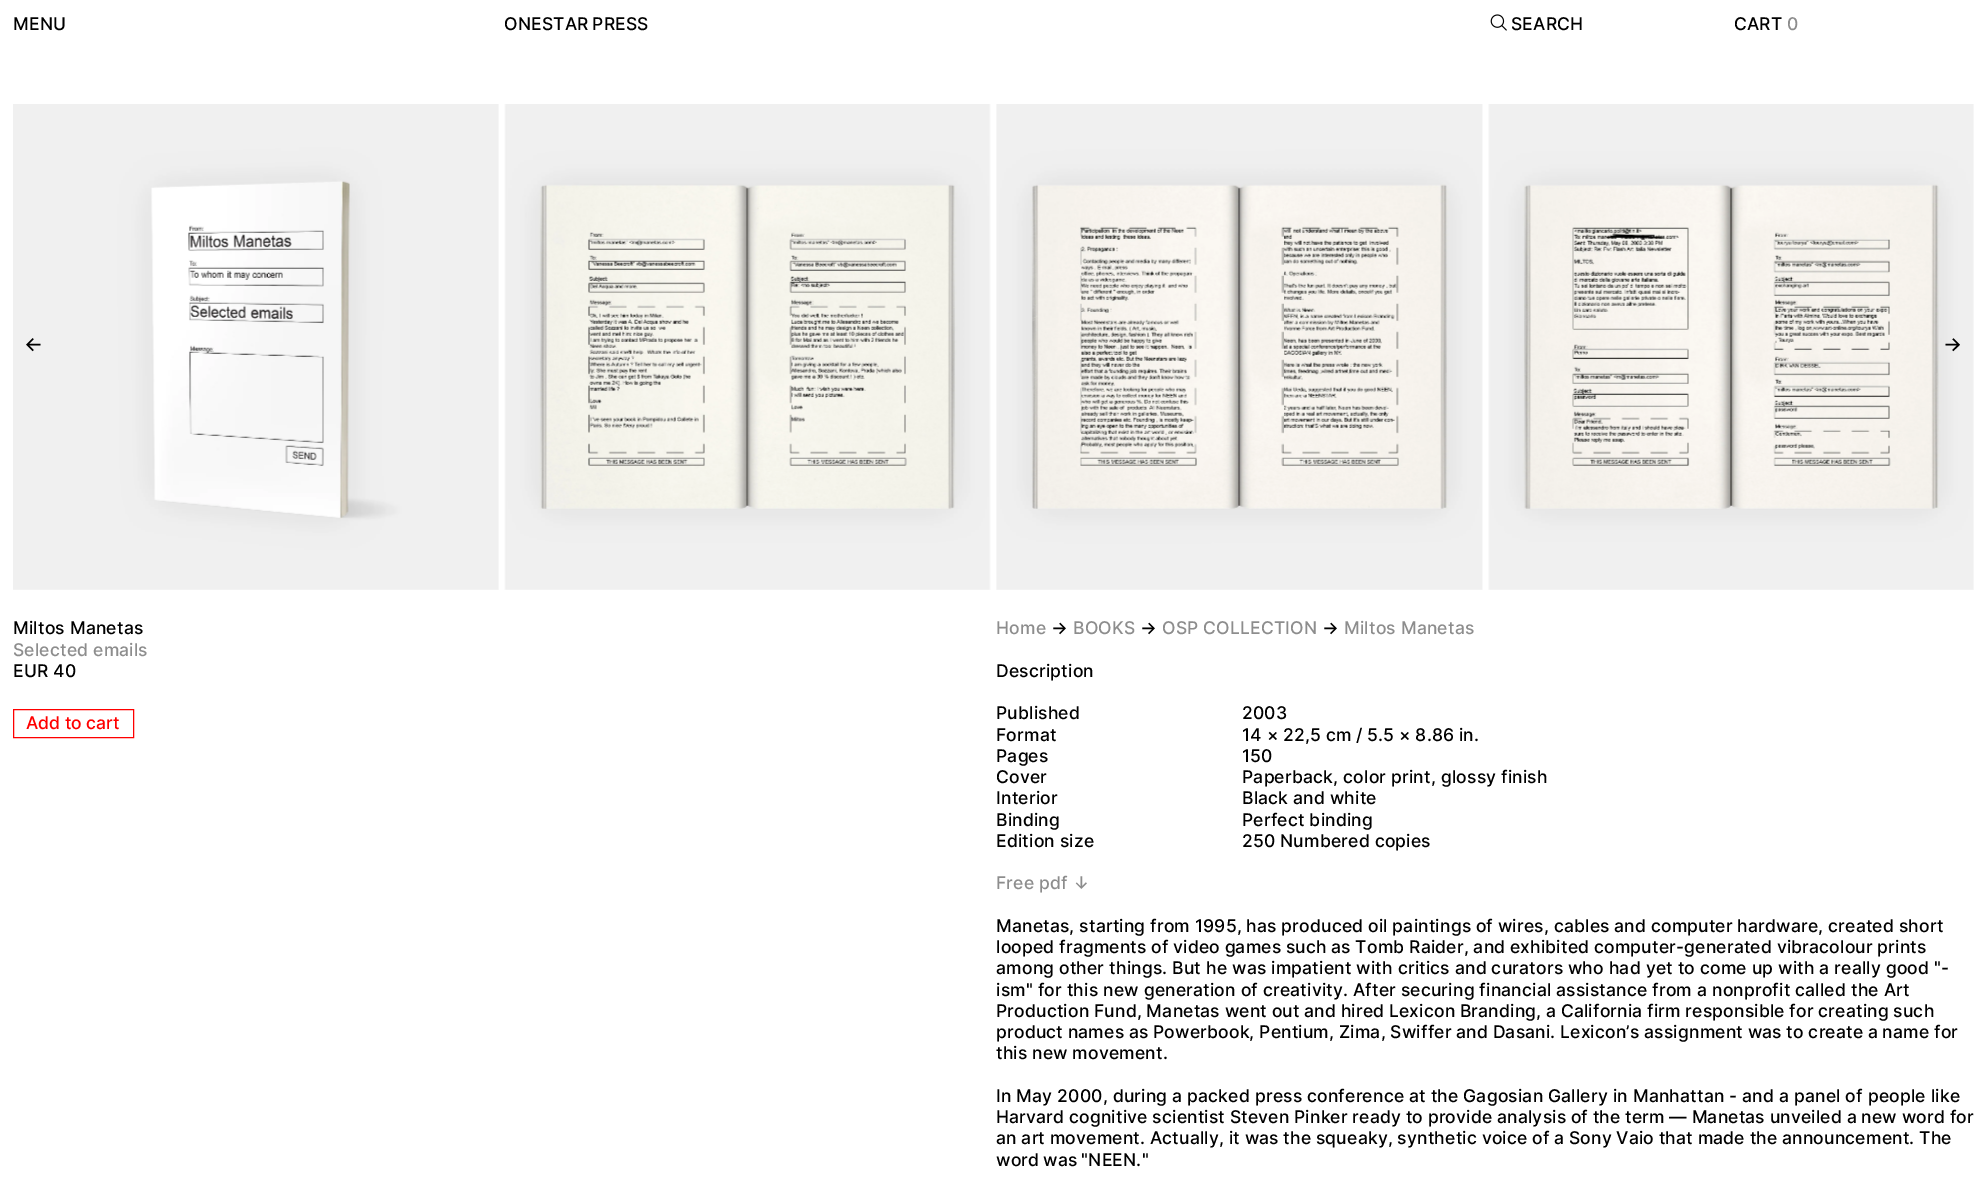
%!PS-Adobe-3.0
%%BoundingBox: 0 0 1986 1181
%%LanguageLevel: 3
%%Pages: 1
%%EndComments
%%BeginProlog
/drawimage { 5 dict begin { /h /w /y /x /name } { exch def } forall
  gsave x y translate w h scale
  w h 8 [w 0 0 h 0 0] name (r) file false 3 colorimage grestore end } def
%%EndProlog
%%BeginSetup
<< /PageSize [1986 1181] >> setpagedevice
%%EndSetup
%%Page: 1 1
0 1181 translate 1 -1 scale
4 setmiterlimit
1 setgray
0 0 1986 1181 rectfill
(images/1.raw) 1490 14 17 17 drawimage
(images/2.raw) 13 104 486 486 drawimage
(images/3.raw) 504 104 487 486 drawimage
(images/4.raw) 996 104 487 486 drawimage
(images/5.raw) 1488 104 486 486 drawimage
1 0 0 setrgbcolor
13.5 709.5 120 28 rectstroke
/Inter-Medium [17.5 0 0 -17.5 0 0] selectfont
0 setgray
13 30 moveto 0.18 0 (MENU) ashow
504 30 moveto -1 0 32 0.18 0 (ONESTAR PRESS) awidthshow
1511 30 moveto 0.18 0 (SEARCH) ashow
1734 30 moveto 0.18 0 (CART) ashow
0.553 setgray
1787 30 moveto 0.18 0 (0) ashow
/Inter-Medium [20 0 0 -20 0 0] selectfont
0 setgray
24 351 moveto (←) show
1943 351 moveto (→) show
/Inter-Medium [17.5 0 0 -17.5 0 0] selectfont
13 634 moveto 0.18 0 (Miltos Manetas) ashow
0.553 setgray
13 656 moveto 0.18 0 (Selected emails) ashow
0 setgray
13 677 moveto 0.18 0 (EUR 40) ashow
1 0 0 setrgbcolor
26 729 moveto (Add to cart) show
0.553 setgray
996 634 moveto 0.18 0 (Home) ashow
0 setgray
1051 634 moveto 0.18 0 (→) ashow
0.553 setgray
1073 634 moveto 0.18 0 (BOOKS) ashow
0 setgray
1140 634 moveto 0.18 0 (→) ashow
0.553 setgray
1162 634 moveto 0.18 0 (OSP COLLECTION) ashow
0 setgray
1322 634 moveto 0.18 0 (→) ashow
0.553 setgray
1344 634 moveto 0.18 0 (Miltos Manetas) ashow
0 setgray
996 677 moveto 0.18 0 (Description) ashow
996 719 moveto 0.18 0 (Published) ashow
1242 719 moveto 0.18 0 (2003) ashow
996 741 moveto 0.18 0 (Format) ashow
1242 741 moveto -0.25 0 32 0.18 0 (14 × 22,5 cm / 5.5 × 8.86 in.) awidthshow
996 762 moveto 0.18 0 (Pages) ashow
1242 762 moveto 0.18 0 (150) ashow
996 783 moveto 0.18 0 (Cover) ashow
1242 783 moveto 0.18 0 (Paperback, color print, glossy finish) ashow
996 804 moveto 0.18 0 (Interior) ashow
1242 804 moveto 0.18 0 (Black and white) ashow
996 826 moveto 0.18 0 (Binding) ashow
1242 826 moveto 0.18 0 (Perfect binding) ashow
996 847 moveto 0.18 0 (Edition size) ashow
1242 847 moveto 0.18 0 (250 Numbered copies) ashow
0.553 setgray
996 889 moveto 0.18 0 (Free pdf ↓) ashow
0 setgray
996 932 moveto -0.2 0 32 0.18 0 (Manetas, starting from 1995, has produced oil paintings of wires, cables and computer hardware, created short) awidthshow
996 953 moveto -0.3 0 32 0.18 0 (looped fragments of video games such as Tomb Raider, and exhibited computer-generated vibracolour prints) awidthshow
996 974 moveto 0.18 0 (among other things. But he was impatient with critics and curators who had yet to come up with a really good "-) ashow
996 996 moveto 0.18 0 (ism" for this new generation of creativity. After securing financial assistance from a nonprofit called the Art) ashow
996 1017 moveto -0.25 0 32 0.18 0 (Production Fund, Manetas went out and hired Lexicon Branding, a California firm responsible for creating such) awidthshow
996 1038 moveto -0.25 0 32 0.18 0 (product names as Powerbook, Pentium, Zima, Swiffer and Dasani. Lexicon’s assignment was to create a name for) awidthshow
996 1059 moveto -0.25 0 32 0.18 0 (this new movement.) awidthshow
996 1102 moveto 0.18 0 (In May 2000, during a packed press conference at the Gagosian Gallery in Manhattan - and a panel of people like) ashow
996 1123 moveto -0.25 0 32 0.18 0 (Harvard cognitive scientist Steven Pinker ready to provide analysis of the term — Manetas unveiled a new word for) awidthshow
996 1144 moveto -0.2 0 32 0.18 0 (an art movement. Actually, it was the squeaky, synthetic voice of a Sony Vaio that made the announcement. The) awidthshow
996 1166 moveto -1 0 32 0.18 0 (word was "NEEN.") awidthshow
showpage
%%EOF
